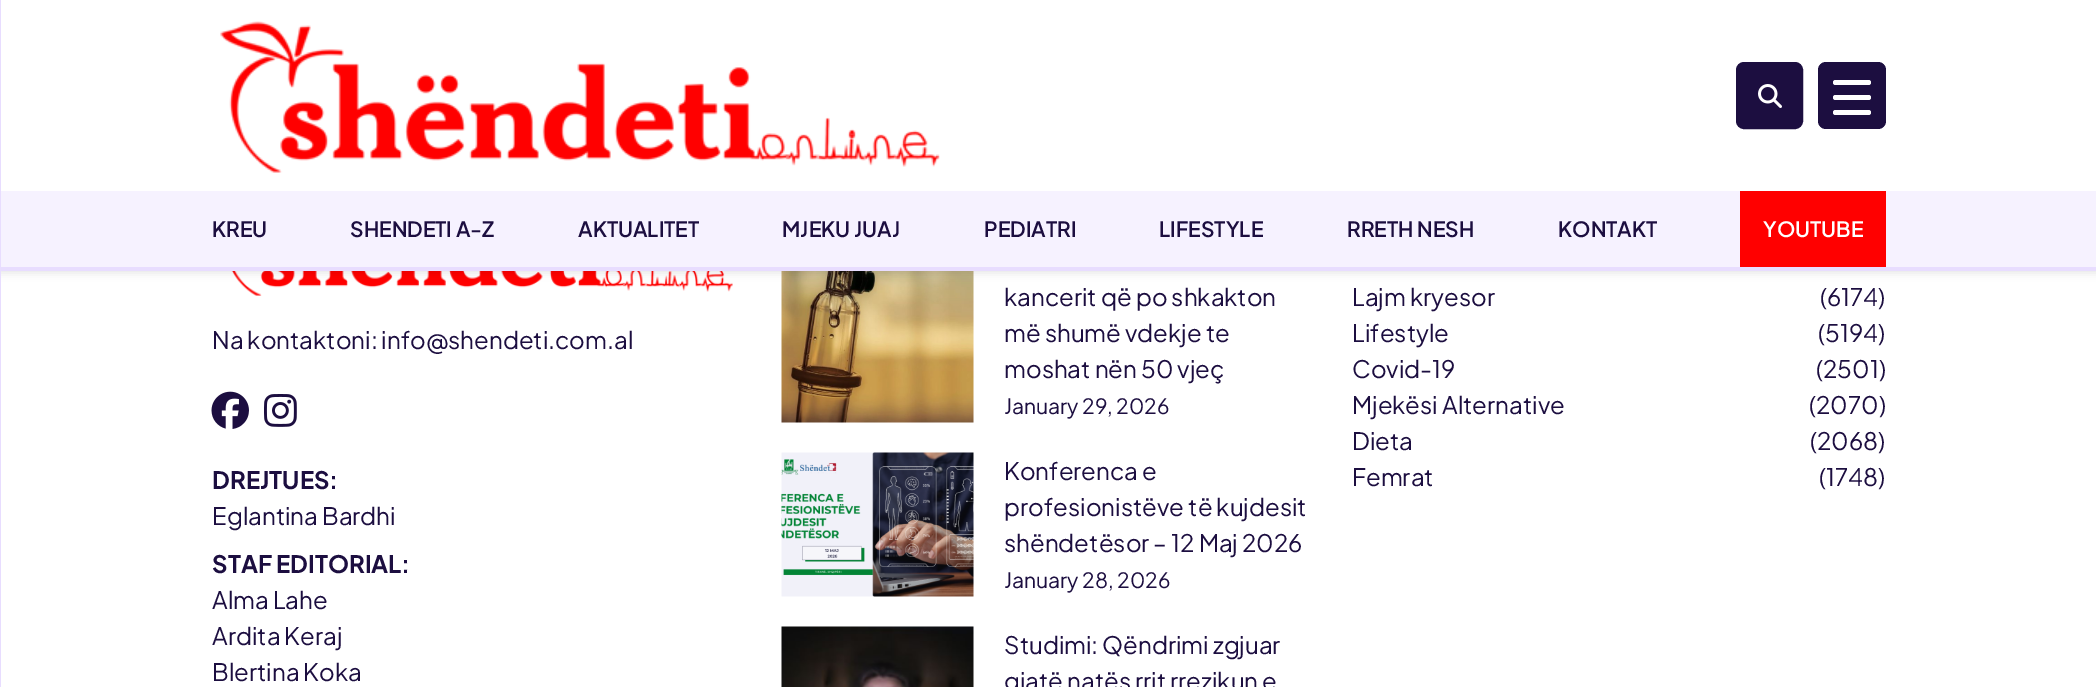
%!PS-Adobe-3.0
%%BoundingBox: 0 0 2096 687
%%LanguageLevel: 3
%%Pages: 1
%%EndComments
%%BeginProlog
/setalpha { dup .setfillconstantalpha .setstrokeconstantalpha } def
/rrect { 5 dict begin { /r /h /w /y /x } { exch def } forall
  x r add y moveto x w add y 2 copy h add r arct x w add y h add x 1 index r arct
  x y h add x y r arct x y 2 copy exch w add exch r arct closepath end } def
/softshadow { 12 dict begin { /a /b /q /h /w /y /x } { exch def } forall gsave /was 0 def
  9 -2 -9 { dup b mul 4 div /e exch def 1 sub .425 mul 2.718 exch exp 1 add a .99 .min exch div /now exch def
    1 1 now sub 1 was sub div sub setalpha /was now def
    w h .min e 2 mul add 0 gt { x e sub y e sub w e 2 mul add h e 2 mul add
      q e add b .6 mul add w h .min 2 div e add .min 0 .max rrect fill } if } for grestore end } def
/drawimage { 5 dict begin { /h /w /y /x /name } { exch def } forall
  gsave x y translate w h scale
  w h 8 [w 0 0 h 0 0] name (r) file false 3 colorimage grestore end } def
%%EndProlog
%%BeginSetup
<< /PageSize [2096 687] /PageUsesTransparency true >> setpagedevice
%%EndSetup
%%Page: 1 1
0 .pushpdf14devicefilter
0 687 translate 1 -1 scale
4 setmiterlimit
1 setgray
0 0 2096 687 rectfill
(images/3.raw) 231 271 502 25 drawimage
(images/6.raw) 781 271 193 152 drawimage
0 setgray
0 3 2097 270 0 4 0.1 softshadow
1 setgray
1 0 2095 191 rectfill
0.91 0.867 1 setrgbcolor
0 267 2096 4 rectfill
0 0 1 687 rectfill
0.11 0.055 0.251 setrgbcolor
1737 63 65 65 7 rrect gsave fill grestore
2 setlinewidth
stroke
(images/1.raw) 1758 84 24 24 drawimage
1818 62 68 67 8 rrect fill
1 setgray
1833 95 38 5 2.5 rrect fill
1833 80 38 5 2.5 rrect fill
1833 110 38 5 2.5 rrect fill
(images/2.raw) 220 21 720 152 drawimage
0.965 0.949 1 setrgbcolor
1 191 2095 76 rectfill
1 0 0 setrgbcolor
1740 191 146 76 rectfill
(images/4.raw) 211 391 38 38 drawimage
(images/5.raw) 264 394 33 33 drawimage
(images/7.raw) 781 452 193 145 drawimage
(images/8.raw) 781 626 193 61 drawimage
/PlusJakartaSans-SemiBold [21 0 0 -21 0 0] selectfont
0.11 0.055 0.251 setrgbcolor
212 237 moveto (KREU) show
350 237 moveto (SHENDETI A-Z) show
578 237 moveto (AKTUALITET) show
782 237 moveto (MJEKU JUAJ) show
984 237 moveto (PEDIATRI) show
1159 237 moveto (LIFESTYLE) show
1347 237 moveto (RRETH NESH) show
1558 237 moveto (KONTAKT) show
1 setgray
1763 237 moveto (YOUTUBE) show
/PlusJakartaSans-Regular [24 0 0 -24 0 0] selectfont
0.11 0.055 0.251 setrgbcolor
212 349 moveto (Na kontaktoni: info@shendeti.com.al) show
/PlusJakartaSans-Bold [24 0 0 -24 0 0] selectfont
212 489 moveto (DREJTUES:) show
/PlusJakartaSans-Regular [24 0 0 -24 0 0] selectfont
212 525 moveto (Eglantina Bardhi) show
/PlusJakartaSans-Bold [24 0 0 -24 0 0] selectfont
212 573 moveto (STAF EDITORIAL:) show
/PlusJakartaSans-Regular [24 0 0 -24 0 0] selectfont
212 609 moveto (Alma Lahe) show
212 645 moveto (Ardita Keraj) show
212 681 moveto (Blertina Koka) show
1004 306 moveto (kancerit që po shkakton) show
1004 342 moveto (më shumë vdekje te) show
1004 378 moveto (moshat nën 50 vjeç) show
/PlusJakartaSans-Regular [21 0 0 -21 0 0] selectfont
1004 414 moveto (January 29, 2026) show
/PlusJakartaSans-Regular [24 0 0 -24 0 0] selectfont
1004 480 moveto (Konferenca e) show
1004 516 moveto (profesionistëve të kujdesit) show
1004 552 moveto (shëndetësor – 12 Maj 2026) show
/PlusJakartaSans-Regular [21 0 0 -21 0 0] selectfont
1004 588 moveto (January 28, 2026) show
/PlusJakartaSans-Regular [24 0 0 -24 0 0] selectfont
1004 654 moveto (Studimi: Qëndrimi zgjuar) show
1004 690 moveto (gjatë natës rrit rrezikun e) show
1352 306 moveto (Lajm kryesor) show
1820 306 moveto (\(6174\)) show
1352 342 moveto (Lifestyle) show
1818 342 moveto (\(5194\)) show
1352 378 moveto (Covid-19) show
1816 378 moveto (\(2501\)) show
1352 414 moveto (Mjekësi Alternative) show
1809 414 moveto (\(2070\)) show
1352 450 moveto (Dieta) show
1810 450 moveto (\(2068\)) show
1352 486 moveto (Femrat) show
1819 486 moveto (\(1748\)) show
.poppdf14devicefilter showpage
%%EOF
